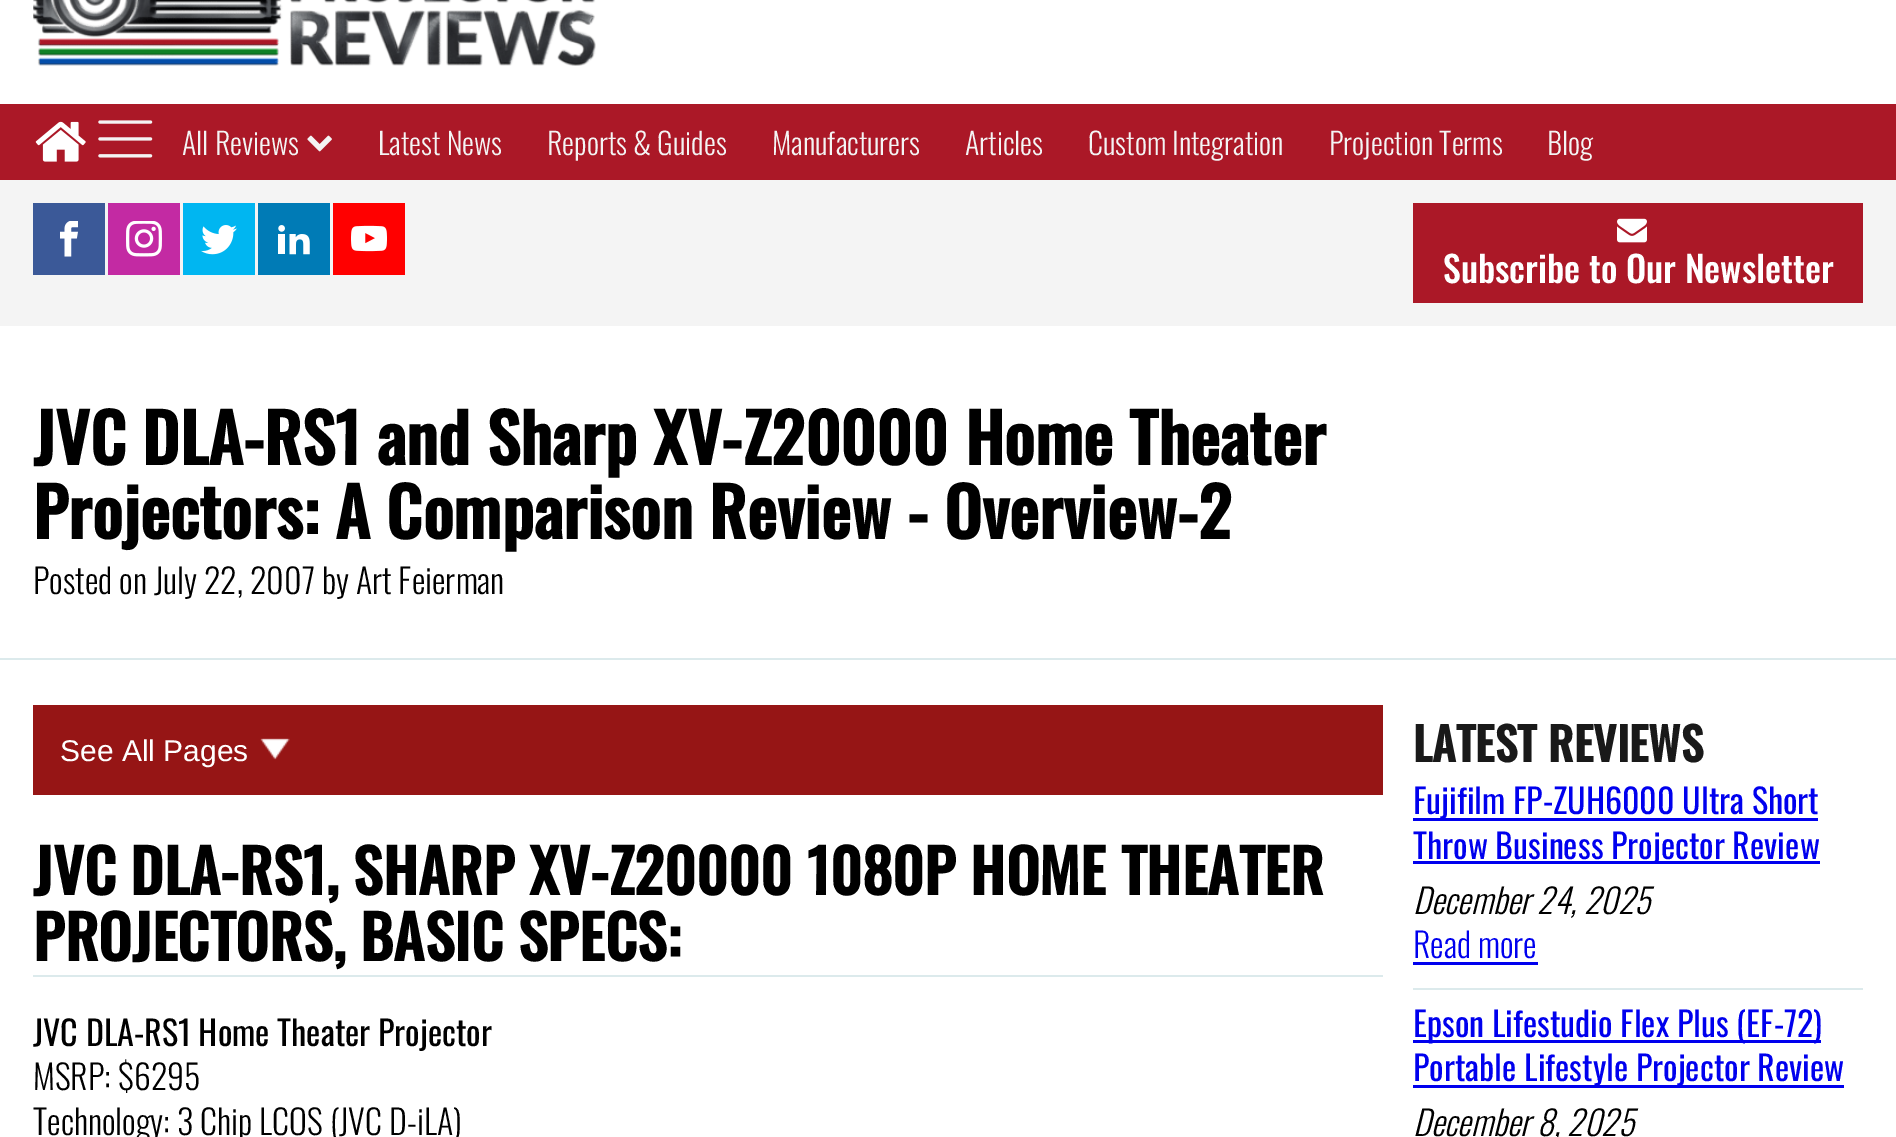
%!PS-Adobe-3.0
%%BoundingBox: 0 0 1896 1137
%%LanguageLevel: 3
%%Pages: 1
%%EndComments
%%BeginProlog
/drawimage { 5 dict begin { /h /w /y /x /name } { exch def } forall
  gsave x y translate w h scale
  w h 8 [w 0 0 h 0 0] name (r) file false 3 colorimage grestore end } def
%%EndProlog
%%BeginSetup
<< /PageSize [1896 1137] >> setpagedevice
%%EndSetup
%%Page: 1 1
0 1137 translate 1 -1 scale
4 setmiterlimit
1 setgray
0 0 1896 1137 rectfill
(images/1.raw) 33 0 563 66 drawimage
0.671 0.094 0.153 setrgbcolor
0 104 1896 76 rectfill
(images/2.raw) 35 121 51 41 drawimage
(images/3.raw) 98 120 55 38 drawimage
(images/4.raw) 307 135 25 17 drawimage
0.957 setgray
0 180 1896 146 rectfill
0.231 0.349 0.596 setrgbcolor
33 203 72 72 rectfill
(images/5.raw) 60 221 18 36 drawimage
0.765 0.165 0.639 setrgbcolor
108 203 72 72 rectfill
(images/6.raw) 126 221 36 36 drawimage
0 0.714 0.945 setrgbcolor
183 203 72 72 rectfill
(images/7.raw) 201 225 36 30 drawimage
0 0.482 0.714 setrgbcolor
258 203 72 72 rectfill
(images/8.raw) 278 225 32 30 drawimage
1 0 0 setrgbcolor
333 203 72 72 rectfill
(images/9.raw) 351 225 36 27 drawimage
0.671 0.094 0.153 setrgbcolor
1413 203 450 100 rectfill
(images/10.raw) 1617 218 30 25 drawimage
0.863 0.918 0.925 setrgbcolor
0 658 1896 2 rectfill
0.588 0.082 0.082 setrgbcolor
33 705 1350 90 rectfill
(images/11.raw) 260 738 30 22 drawimage
0.863 0.918 0.925 setrgbcolor
33 975 1350 2 rectfill
1413 988 450 2 rectfill
0 0 0.933 setrgbcolor
1413 818 405 3 rectfill
1413 861 407 3 rectfill
1413 962 125 3 rectfill
1413 1040 408 3 rectfill
1413 1085 431 3 rectfill
/Oswald-Light [30 0 0 -30 0 0] selectfont
0.957 setgray
182 155 moveto (All Reviews) show
378 155 moveto (Latest News) show
547 155 moveto (Reports & Guides) show
772 155 moveto (Manufacturers) show
965 155 moveto (Articles) show
1088 155 moveto (Custom Integration) show
1329 155 moveto (Projection Terms) show
1547 155 moveto (Blog) show
/Oswald-Medium [36 0 0 -36 0 0] selectfont
1 setgray
1443 283 moveto (Subscribe to Our Newsletter) show
/Oswald-Bold [67.25 0 0 -67.25 0 0] selectfont
0 setgray
33 465 moveto (JVC DLA-RS1 and Sharp XV-Z20000 Home Theater) show
33 539 moveto (Projectors: A Comparison Review - Overview-2) show
/Oswald-Light [34 0 0 -34 0 0] selectfont
33 594 moveto (Posted on July 22, 2007 by Art Feierman) show
/LiberationSans-Regular [30 0 0 -30 0 0] selectfont
1 setgray
60 761 moveto (See All Pages) show
/Oswald-Bold [60 0 0 -60 0 0] selectfont
0 setgray
33 895 moveto (JVC DLA-RS1, SHARP XV-Z20000 1080P HOME THEATER) show
33 961 moveto (PROJECTORS, BASIC SPECS:) show
/Oswald-Regular [34 0 0 -34 0 0] selectfont
33 1046 moveto (JVC DLA-RS1 Home Theater Projector) show
/Oswald-Light [34 0 0 -34 0 0] selectfont
33 1090 moveto (MSRP: $6295) show
33 1135 moveto (Technology: 3 Chip LCOS \(JVC D-iLA\)) show
/Oswald-Bold [45.5 0 0 -45.5 0 0] selectfont
0.098 setgray
1413 762 moveto (LATEST REVIEWS) show
/Oswald-Regular [34 0 0 -34 0 0] selectfont
0 0 0.933 setrgbcolor
1413 814 moveto (Fujifilm FP-ZUH6000 Ultra Short) show
1413 859 moveto (Throw Business Projector Review) show
/Oswald-LightItalic [34 0 0 -34 0 0] selectfont
0 setgray
1413 914 moveto (December 24, 2025) show
/Oswald-Light [34 0 0 -34 0 0] selectfont
0 0 0.933 setrgbcolor
1413 958 moveto (Read more) show
/Oswald-Regular [34 0 0 -34 0 0] selectfont
1413 1037 moveto (Epson Lifestudio Flex Plus \(EF-72\)) show
1413 1081 moveto (Portable Lifestyle Projector Review) show
/Oswald-LightItalic [34 0 0 -34 0 0] selectfont
0 setgray
1413 1136 moveto (December 8, 2025) show
showpage
%%EOF
